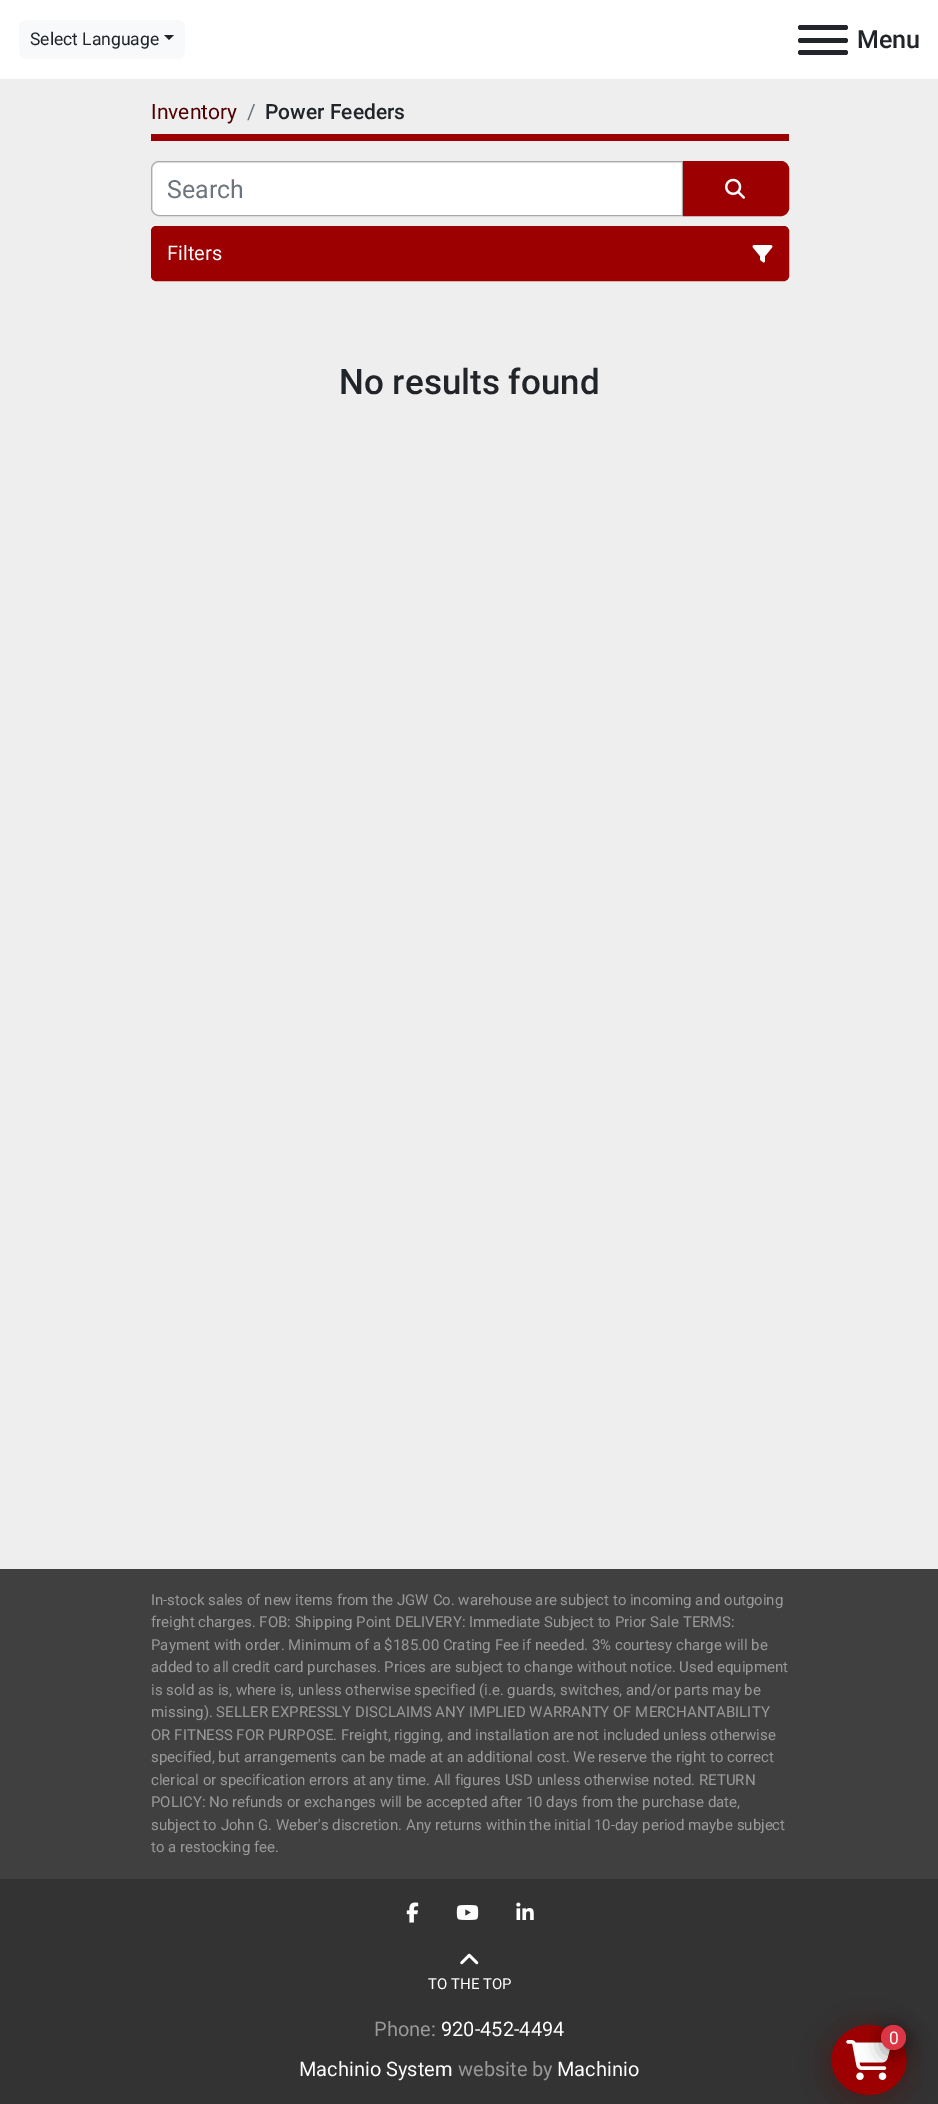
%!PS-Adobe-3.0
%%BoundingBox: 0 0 938 2104
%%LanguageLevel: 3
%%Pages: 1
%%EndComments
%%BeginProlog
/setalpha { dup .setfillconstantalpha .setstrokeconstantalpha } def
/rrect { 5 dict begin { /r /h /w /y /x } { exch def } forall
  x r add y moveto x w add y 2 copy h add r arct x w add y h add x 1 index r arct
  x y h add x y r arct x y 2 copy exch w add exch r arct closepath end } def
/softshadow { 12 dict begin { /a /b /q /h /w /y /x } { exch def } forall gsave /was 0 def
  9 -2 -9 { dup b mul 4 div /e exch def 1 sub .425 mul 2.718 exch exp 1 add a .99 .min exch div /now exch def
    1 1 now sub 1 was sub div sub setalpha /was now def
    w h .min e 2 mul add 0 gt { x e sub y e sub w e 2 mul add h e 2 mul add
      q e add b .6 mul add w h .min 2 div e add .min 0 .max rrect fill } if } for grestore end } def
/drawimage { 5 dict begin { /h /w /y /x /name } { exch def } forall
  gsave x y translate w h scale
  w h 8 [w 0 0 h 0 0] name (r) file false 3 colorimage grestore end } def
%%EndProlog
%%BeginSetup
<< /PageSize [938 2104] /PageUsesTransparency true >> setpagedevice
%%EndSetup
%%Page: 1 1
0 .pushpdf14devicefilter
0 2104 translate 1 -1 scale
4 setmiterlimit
0.933 setgray
0 0 938 2104 rectfill
1 setgray
0 0 938 79 rectfill
0.973 0.976 0.98 setrgbcolor
19 20 166 39 8 rrect fill
0.129 0.145 0.161 setrgbcolor
newpath 164 35 moveto 174 35 lineto 169 40 lineto closepath fill
798 38 50 5 2.5 rrect fill
798 25 50 5 2.5 rrect fill
798 50 50 5 2.5 rrect fill
0.612 0 0.004 setrgbcolor
151 134 638 7 rectfill
1 setgray
newpath 159 163 moveto 681 163 lineto 681 215 lineto 159 215 lineto 155.5 215 153 212.5 153 209 curveto 153 169 lineto 153 165.5 155.5 163 159 163 curveto closepath fill
0.667 setgray
newpath 159 161.5 moveto 682.5 161.5 lineto 682.5 215.5 lineto 159 215.5 lineto 155 215.5 151.5 212 151.5 208 curveto 151.5 169 lineto 151.5 165 155 161.5 159 161.5 curveto closepath stroke
0.612 0 0.004 setrgbcolor
newpath 683.5 161.5 moveto 781 161.5 lineto 785 161.5 788.5 165 788.5 169 curveto 788.5 208 lineto 788.5 212 785 215.5 781 215.5 curveto 683.5 215.5 lineto closepath gsave fill grestore
stroke
(images/1.raw) 725 178 20 21 drawimage
151.5 226.5 637 54 4.5 rrect gsave fill grestore
stroke
(images/2.raw) 752 245 21 18 drawimage
0.2 setgray
0 1879 938 225 rectfill
0.251 setgray
0 1569 938 310 rectfill
(images/3.raw) 406 1902 13 21 drawimage
(images/4.raw) 456 1905 23 15 drawimage
(images/5.raw) 516 1902 18 18 drawimage
(images/6.raw) 460 1953 19 12 drawimage
0.314 0 0.004 setrgbcolor
831 2030 75 70 35 15 0.4 softshadow
0.612 0 0.004 setrgbcolor
newpath 869 2025 moveto 889.5 2025 906.5 2040.5 906.5 2060 curveto 906.5 2079.5 889.5 2095 869 2095 curveto 848.5 2095 831.5 2079.5 831.5 2060 curveto 831.5 2040.5 848.5 2025 869 2025 curveto closepath fill
(images/7.raw) 846 2040 44 40 drawimage
0 setgray
881 2030 25 25 12.5 10 0.4 softshadow
0.863 0.208 0.271 setrgbcolor
newpath 893.5 2037.5 12.5 0 360 arc closepath fill
/Roboto-Regular [17.5 0 0 -17.5 0 0] selectfont
0.129 0.145 0.161 setrgbcolor
30 45 moveto (Select Language) show
/Roboto-Medium [25 0 0 -25 0 0] selectfont
857 48 moveto (Menu) show
/Roboto-Regular [21 0 0 -21 0 0] selectfont
0.314 0 0.004 setrgbcolor
151 119 moveto (Inventory) show
0.424 0.459 0.49 setrgbcolor
247 119 moveto (/) show
/Roboto-Medium [21 0 0 -21 0 0] selectfont
0.129 0.145 0.161 setrgbcolor
265 119 moveto (Power Feeders) show
/Roboto-Regular [25 0 0 -25 0 0] selectfont
0.424 0.459 0.49 setrgbcolor
167 198 moveto (Search) show
/Roboto-Regular [20 0 0 -20 0 0] selectfont
1 setgray
167 260 moveto (Filters) show
/Roboto-Medium [35 0 0 -35 0 0] selectfont
0.129 0.145 0.161 setrgbcolor
339 394 moveto (No results found) show
/Roboto-Regular [15 0 0 -15 0 0] selectfont
0.6 setgray
151 1605 moveto (In-stock sales of new items from the JGW Co. warehouse are subject to incoming and outgoing) show
151 1627 moveto (freight charges. FOB: Shipping Point DELIVERY: Immediate Subject to Prior Sale TERMS:) show
151 1650 moveto (Payment with order. Minimum of a $185.00 Crating Fee if needed. 3% courtesy charge will be) show
151 1672 moveto (added to all credit card purchases. Prices are subject to change without notice. Used equipment) show
151 1695 moveto (is sold as is, where is, unless otherwise specified \(i.e. guards, switches, and/or parts may be) show
151 1717 moveto (missing\). SELLER EXPRESSLY DISCLAIMS ANY IMPLIED WARRANTY OF MERCHANTABILITY) show
151 1740 moveto (OR FITNESS FOR PURPOSE. Freight, rigging, and installation are not included unless otherwise) show
151 1762 moveto (specified, but arrangements can be made at an additional cost. We reserve the right to correct) show
151 1785 moveto (clerical or specification errors at any time. All figures USD unless otherwise noted. RETURN) show
151 1807 moveto (POLICY: No refunds or exchanges will be accepted after 10 days from the purchase date,) show
151 1830 moveto (subject to John G. Weber's discretion. Any returns within the initial 10-day period maybe subject) show
151 1852 moveto (to a restocking fee.) show
1 setgray
428 1989 moveto (TO THE TOP) show
/Roboto-Regular [20 0 0 -20 0 0] selectfont
0.6 setgray
374 2036 moveto (Phone:) show
1 setgray
441 2036 moveto (920-452-4494) show
299 2076 moveto (Machinio System) show
0.6 setgray
458 2076 moveto (website by) show
1 setgray
557 2076 moveto (Machinio) show
/Roboto-Regular [17.5 0 0 -17.5 0 0] selectfont
889 2044 moveto (0) show
.poppdf14devicefilter showpage
%%EOF
